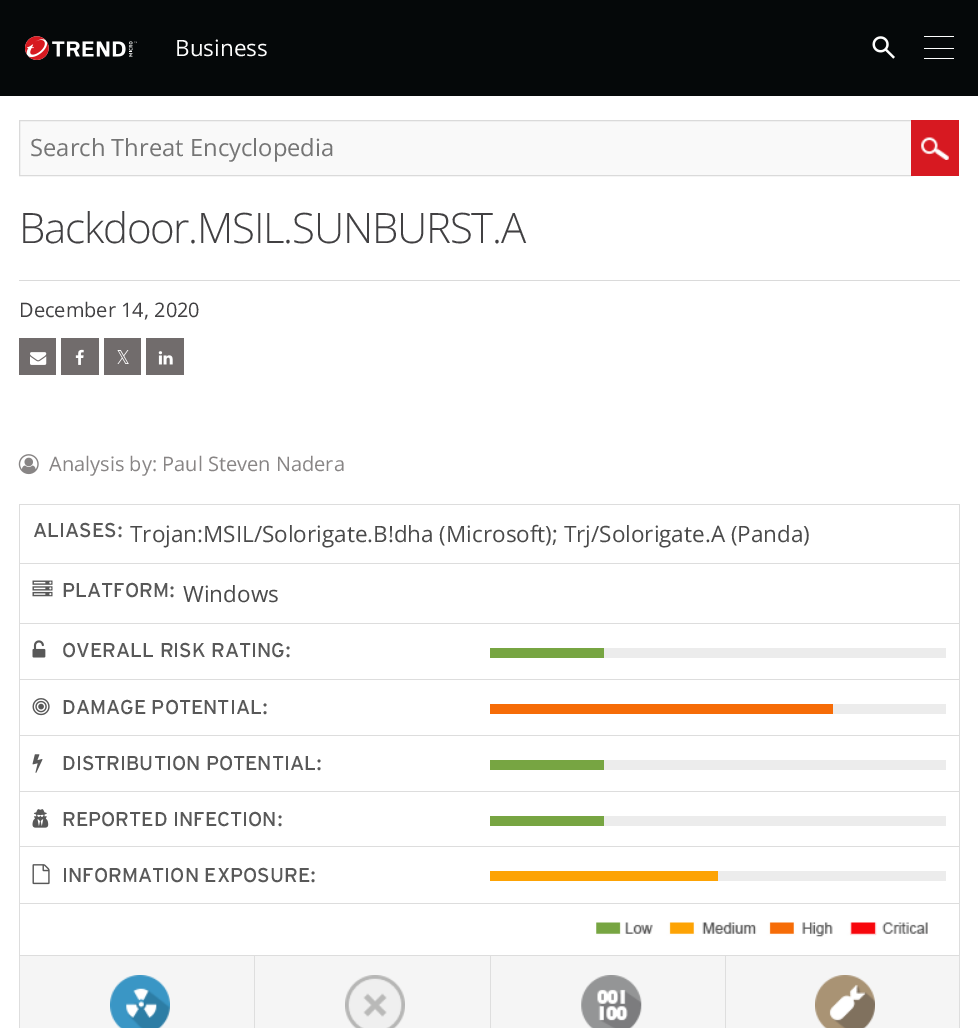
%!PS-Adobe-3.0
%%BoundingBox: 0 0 978 1028
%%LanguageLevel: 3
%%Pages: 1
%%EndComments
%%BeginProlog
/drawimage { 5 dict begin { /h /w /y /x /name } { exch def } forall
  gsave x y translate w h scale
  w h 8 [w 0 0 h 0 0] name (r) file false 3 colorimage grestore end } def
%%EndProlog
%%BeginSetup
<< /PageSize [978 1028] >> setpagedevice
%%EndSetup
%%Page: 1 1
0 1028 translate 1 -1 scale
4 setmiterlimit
1 setgray
0 0 978 1028 rectfill
0.02 0.031 0.035 setrgbcolor
0 0 978 96 rectfill
(images/1.raw) 25 36 112 24 drawimage
(images/2.raw) 872 36 23 23 drawimage
1 setgray
924 48 30 1 rectfill
924 36 30 1 rectfill
924 58 30 1 rectfill
0.976 setgray
20 121 891 54 rectfill
0.855 setgray
19.5 120.5 893 55 rectstroke
0.843 0.098 0.129 setrgbcolor
911 120 48 56 rectfill
(images/3.raw) 921 137 28 23 drawimage
0.855 setgray
19 280 941 1 rectfill
0.443 0.424 0.424 setrgbcolor
19 338 37 37 rectfill
(images/4.raw) 30 352 17 13 drawimage
61 338 38 37 rectfill
(images/5.raw) 75 349 9 16 drawimage
104 338 37 37 rectfill
(images/6.raw) 117 350 12 14 drawimage
146 338 38 37 rectfill
(images/7.raw) 158 351 15 14 drawimage
(images/8.raw) 18 454 21 21 drawimage
0.867 setgray
19 504 941 1 rectfill
959 504 1 59 rectfill
19 504 1 59 rectfill
19 563 941 1 rectfill
959 563 1 60 rectfill
19 563 1 60 rectfill
(images/9.raw) 32 580 21 17 drawimage
19 623 941 1 rectfill
959 623 1 56 rectfill
19 623 1 56 rectfill
(images/10.raw) 32 640 14 18 drawimage
0.925 setgray
604 648 342 10 rectfill
0.467 0.647 0.259 setrgbcolor
490 648 114 10 rectfill
0.867 setgray
19 679 941 1 rectfill
959 679 1 56 rectfill
19 679 1 56 rectfill
(images/11.raw) 32 698 18 18 drawimage
0.925 setgray
833 704 113 10 rectfill
0.965 0.424 0.027 setrgbcolor
490 704 343 10 rectfill
0.867 setgray
19 735 941 1 rectfill
959 735 1 56 rectfill
19 735 1 56 rectfill
(images/12.raw) 32 754 11 19 drawimage
0.925 setgray
604 760 342 10 rectfill
0.467 0.647 0.259 setrgbcolor
490 760 114 10 rectfill
0.867 setgray
19 791 941 1 rectfill
959 791 1 55 rectfill
19 791 1 55 rectfill
(images/13.raw) 32 809 17 19 drawimage
0.925 setgray
604 816 342 10 rectfill
0.467 0.647 0.259 setrgbcolor
490 816 114 10 rectfill
0.867 setgray
19 846 941 1 rectfill
959 846 1 57 rectfill
19 846 1 57 rectfill
(images/14.raw) 32 864 18 21 drawimage
0.925 setgray
718 871 228 10 rectfill
0.992 0.639 0.016 setrgbcolor
490 871 228 10 rectfill
0.867 setgray
19 903 941 1 rectfill
959 903 1 52 rectfill
19 903 1 52 rectfill
(images/15.raw) 596 922 332 15 drawimage
0.961 setgray
20 956 939 72 rectfill
0.867 setgray
19 955 941 1 rectfill
0.871 setgray
19 956 1 72 rectfill
(images/16.raw) 110 975 60 53 drawimage
254 956 1 72 rectfill
(images/17.raw) 345 975 60 53 drawimage
490 956 1 72 rectfill
(images/18.raw) 581 975 61 53 drawimage
959 956 1 72 rectfill
725 956 1 72 rectfill
(images/19.raw) 815 975 60 53 drawimage
/OpenSans-Regular [22.5 0 0 -22.5 0 0] selectfont
1 setgray
175 56 moveto (Business) show
/OpenSans-Regular [23.75 0 0 -23.75 0 0] selectfont
0.459 setgray
30 156 moveto (Search Threat Encyclopedia) show
/OpenSans-Light [42 0 0 -42 0 0] selectfont
0.255 0.251 0.259 setrgbcolor
19 243 moveto -1.25 0 (Backdoor.MSIL.SUNBURST.A) ashow
/OpenSans-Regular [20 0 0 -20 0 0] selectfont
19 317 moveto (December 14, 2020) show
0.533 0.522 0.522 setrgbcolor
49 471 moveto (Analysis by: Paul Steven Nadera) show
/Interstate-Regular [20 0 0 -20 0 0] selectfont
0.345 setgray
33 537 moveto (ALIASES:) show
/OpenSans-Regular [22.5 0 0 -22.5 0 0] selectfont
0.29 setgray
130 542 moveto (Trojan:MSIL/Solorigate.B!dha \(Microsoft\); Trj/Solorigate.A \(Panda\)) show
/Interstate-Regular [20 0 0 -20 0 0] selectfont
0.345 setgray
62 597 moveto (PLATFORM:) show
/OpenSans-Regular [22.5 0 0 -22.5 0 0] selectfont
0.29 setgray
183 602 moveto (Windows) show
/Interstate-Regular [20 0 0 -20 0 0] selectfont
0.345 setgray
62 657 moveto (OVERALL RISK RATING:) show
62 714 moveto (DAMAGE POTENTIAL:) show
62 770 moveto (DISTRIBUTION POTENTIAL:) show
62 826 moveto (REPORTED INFECTION:) show
62 882 moveto (INFORMATION EXPOSURE:) show
showpage
%%EOF
